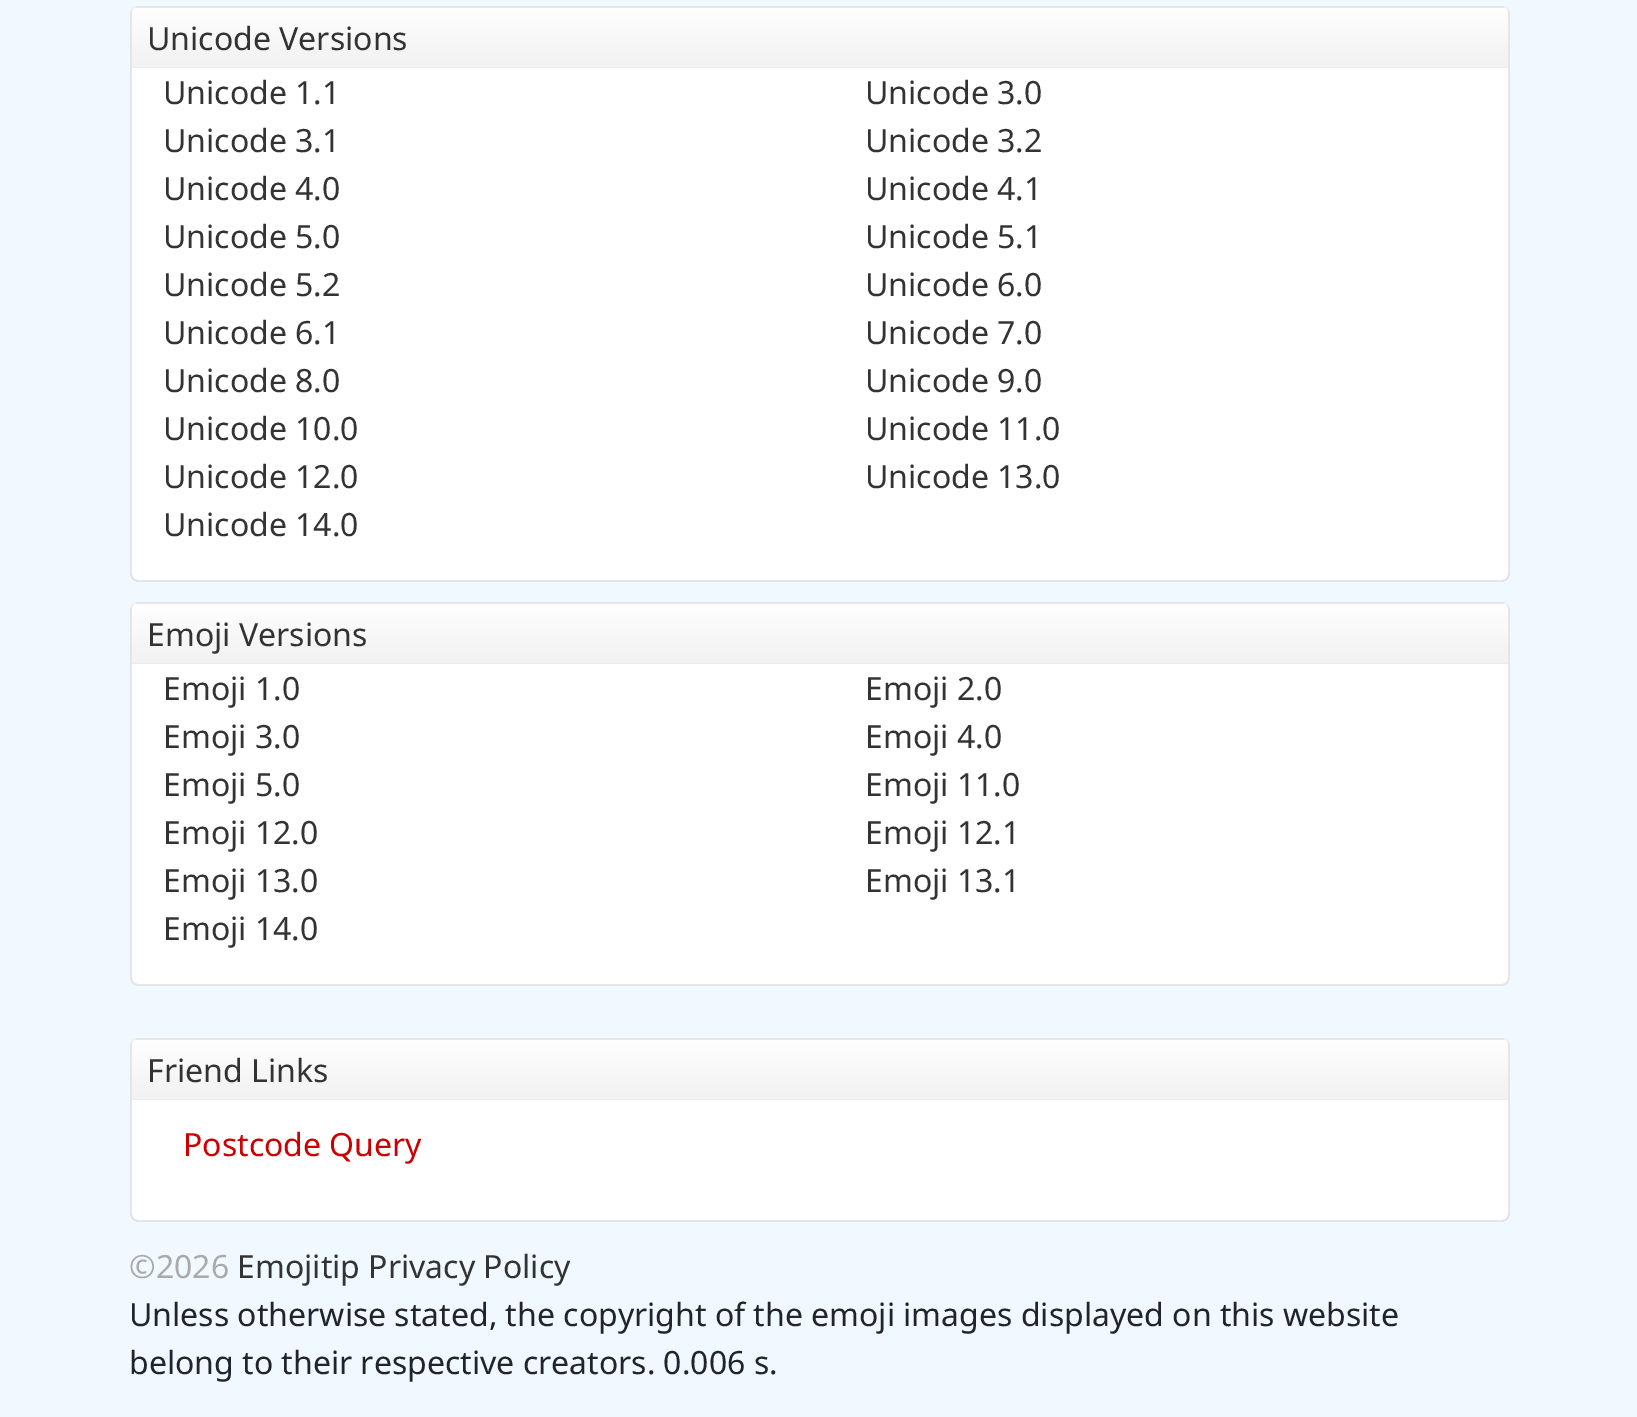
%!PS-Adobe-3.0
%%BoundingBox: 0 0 1637 1417
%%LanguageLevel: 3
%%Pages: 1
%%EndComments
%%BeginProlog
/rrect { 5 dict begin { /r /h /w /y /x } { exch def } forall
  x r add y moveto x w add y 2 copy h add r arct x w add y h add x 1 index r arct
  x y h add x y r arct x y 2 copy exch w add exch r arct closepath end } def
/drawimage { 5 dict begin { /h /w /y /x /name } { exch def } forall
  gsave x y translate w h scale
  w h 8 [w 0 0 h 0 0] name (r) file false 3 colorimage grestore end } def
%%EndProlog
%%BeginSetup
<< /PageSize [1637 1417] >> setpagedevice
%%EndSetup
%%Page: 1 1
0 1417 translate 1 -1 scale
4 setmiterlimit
0.937 0.976 1 setrgbcolor
0 0 1637 1417 rectfill
1 setgray
130 6 1380 576 8 rrect fill
0.898 setgray
newpath 138 6 moveto 1502 6 lineto 1506 6 1510 10 1510 14 curveto 1510 574 lineto 1510 578 1506 582 1502 582 curveto 138 582 lineto 134 582 130 578 130 574 curveto 130 14 lineto 130 10 134 6 138 6 curveto closepath 138 6 moveto 1502 6 lineto 1505 6 1508 10 1508 14 curveto 1508 574 lineto 1508 577 1505 580 1502 580 curveto 138 580 lineto 135 580 132 577 132 574 curveto 132 14 lineto 132 10 135 6 138 6 curveto closepath eofill
0.973 setgray
newpath 140 6 moveto 1500 6 lineto 1504.5 6 1508 9.5 1508 14 curveto 1508 68 lineto 132 68 lineto 132 14 lineto 132 9.5 135.5 6 140 6 curveto closepath fill
(images/1.raw) 132 8 1376 60 drawimage
0.898 setgray
136 6 1368 2 rectfill
1 setgray
130 602 1380 384 8 rrect fill
0.898 setgray
newpath 138 602 moveto 1502 602 lineto 1506 602 1510 606 1510 610 curveto 1510 978 lineto 1510 982 1506 986 1502 986 curveto 138 986 lineto 134 986 130 982 130 978 curveto 130 610 lineto 130 606 134 602 138 602 curveto closepath 138 602 moveto 1502 602 lineto 1505 602 1508 606 1508 610 curveto 1508 978 lineto 1508 981 1505 984 1502 984 curveto 138 984 lineto 135 984 132 981 132 978 curveto 132 610 lineto 132 606 135 602 138 602 curveto closepath eofill
0.973 setgray
newpath 140 602 moveto 1500 602 lineto 1504.5 602 1508 605.5 1508 610 curveto 1508 664 lineto 132 664 lineto 132 610 lineto 132 605.5 135.5 602 140 602 curveto closepath fill
(images/1.raw) 132 604 1376 60 drawimage
0.898 setgray
136 602 1368 2 rectfill
1 setgray
130 1038 1380 184 8 rrect fill
0.898 setgray
newpath 138 1038 moveto 1502 1038 lineto 1506 1038 1510 1042 1510 1046 curveto 1510 1214 lineto 1510 1218 1506 1222 1502 1222 curveto 138 1222 lineto 134 1222 130 1218 130 1214 curveto 130 1046 lineto 130 1042 134 1038 138 1038 curveto closepath 138 1038 moveto 1502 1038 lineto 1505 1038 1508 1042 1508 1046 curveto 1508 1214 lineto 1508 1217 1505 1220 1502 1220 curveto 138 1220 lineto 135 1220 132 1217 132 1214 curveto 132 1046 lineto 132 1042 135 1038 138 1038 curveto closepath eofill
0.973 setgray
newpath 140 1038 moveto 1500 1038 lineto 1504.5 1038 1508 1041.5 1508 1046 curveto 1508 1100 lineto 132 1100 lineto 132 1046 lineto 132 1041.5 135.5 1038 140 1038 curveto closepath fill
(images/1.raw) 132 1040 1376 60 drawimage
0.898 setgray
136 1038 1368 2 rectfill
/NotoSans-Regular [32 0 0 -32 0 0] selectfont
0.2 setgray
147 50 moveto (Unicode Versions) show
163 104 moveto (Unicode 1.1) show
865 104 moveto (Unicode 3.0) show
163 152 moveto (Unicode 3.1) show
865 152 moveto (Unicode 3.2) show
163 200 moveto (Unicode 4.0) show
865 200 moveto (Unicode 4.1) show
163 248 moveto (Unicode 5.0) show
865 248 moveto (Unicode 5.1) show
163 296 moveto (Unicode 5.2) show
865 296 moveto (Unicode 6.0) show
163 344 moveto (Unicode 6.1) show
865 344 moveto (Unicode 7.0) show
163 392 moveto (Unicode 8.0) show
865 392 moveto (Unicode 9.0) show
163 440 moveto (Unicode 10.0) show
865 440 moveto (Unicode 11.0) show
163 488 moveto (Unicode 12.0) show
865 488 moveto (Unicode 13.0) show
163 536 moveto (Unicode 14.0) show
147 646 moveto (Emoji Versions) show
163 700 moveto (Emoji 1.0) show
865 700 moveto (Emoji 2.0) show
163 748 moveto (Emoji 3.0) show
865 748 moveto (Emoji 4.0) show
163 796 moveto (Emoji 5.0) show
865 796 moveto (Emoji 11.0) show
163 844 moveto (Emoji 12.0) show
865 844 moveto (Emoji 12.1) show
163 892 moveto (Emoji 13.0) show
865 892 moveto (Emoji 13.1) show
163 940 moveto (Emoji 14.0) show
147 1082 moveto (Friend Links) show
0.8 0 0 setrgbcolor
183 1156 moveto (Postcode Query) show
0.667 setgray
129 1278 moveto (©2026) show
0.2 setgray
237 1278 moveto (Emojitip Privacy Policy) show
0.129 0.145 0.161 setrgbcolor
129 1326 moveto (Unless otherwise stated, the copyright of the emoji images displayed on this website) show
129 1374 moveto (belong to their respective creators. 0.006 s.) show
showpage
%%EOF
